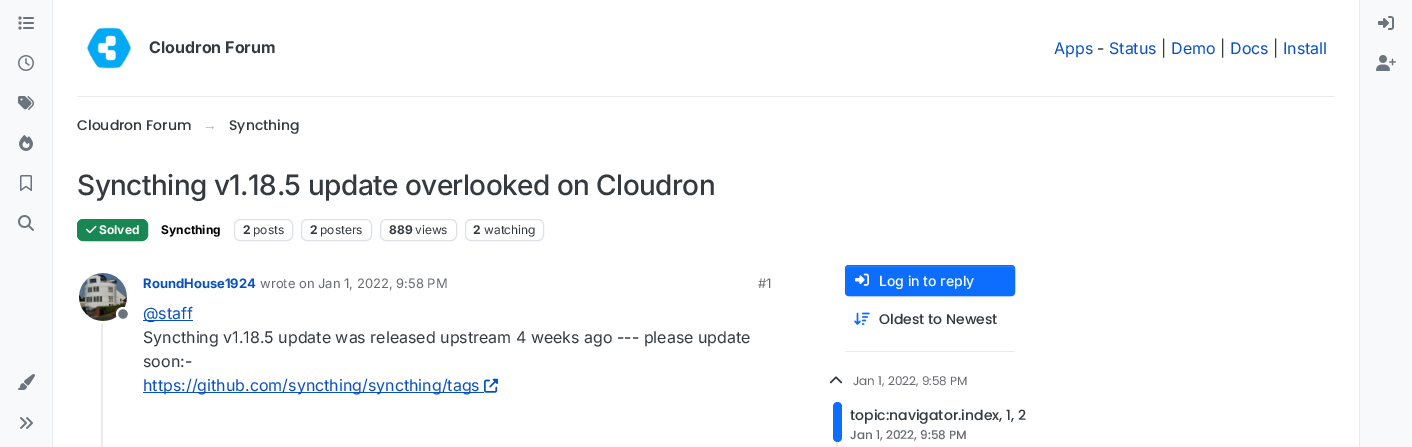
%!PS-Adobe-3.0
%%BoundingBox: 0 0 1412 447
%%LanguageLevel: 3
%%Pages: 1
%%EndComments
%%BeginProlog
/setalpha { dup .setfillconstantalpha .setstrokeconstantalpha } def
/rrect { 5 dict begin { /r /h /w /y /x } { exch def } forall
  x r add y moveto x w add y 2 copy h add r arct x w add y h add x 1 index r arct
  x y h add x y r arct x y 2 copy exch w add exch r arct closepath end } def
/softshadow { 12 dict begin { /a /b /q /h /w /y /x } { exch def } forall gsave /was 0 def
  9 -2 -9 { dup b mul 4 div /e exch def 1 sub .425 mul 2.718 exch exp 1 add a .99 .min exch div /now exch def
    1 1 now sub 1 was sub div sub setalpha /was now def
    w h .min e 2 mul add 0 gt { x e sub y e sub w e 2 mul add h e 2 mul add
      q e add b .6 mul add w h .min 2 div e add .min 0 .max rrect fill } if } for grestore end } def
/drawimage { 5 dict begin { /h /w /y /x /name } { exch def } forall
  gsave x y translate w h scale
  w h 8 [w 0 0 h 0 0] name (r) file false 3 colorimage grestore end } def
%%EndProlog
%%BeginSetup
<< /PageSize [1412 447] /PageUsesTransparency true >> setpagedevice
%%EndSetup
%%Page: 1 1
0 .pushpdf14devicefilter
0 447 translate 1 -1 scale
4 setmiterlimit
1 setgray
0 0 1412 447 rectfill
0.973 0.976 0.98 setrgbcolor
0 0 52 447 rectfill
0.914 0.925 0.937 setrgbcolor
52 0 1 447 rectfill
(images/1.raw) 18 16 16 14 drawimage
(images/2.raw) 18 55 16 16 drawimage
(images/3.raw) 18 96 16 14 drawimage
(images/4.raw) 19 135 14 16 drawimage
(images/5.raw) 20 175 12 16 drawimage
(images/6.raw) 18 215 16 16 drawimage
(images/7.raw) 18 374 17 16 drawimage
(images/8.raw) 20 417 13 12 drawimage
77 96 1258 1 rectfill
(images/9.raw) 87 27 44 42 drawimage
0.098 0.529 0.329 setrgbcolor
77.5 219.5 70 21 5.5 rrect gsave fill grestore
stroke
(images/10.raw) 86 225 11 9 drawimage
0.871 0.886 0.902 setrgbcolor
234.5 219.5 58 21 5.5 rrect stroke
301.5 219.5 70 21 5.5 rrect stroke
380.5 219.5 76 21 5.5 rrect stroke
465.5 219.5 78 21 5.5 rrect stroke
0.914 0.925 0.937 setrgbcolor
101 273 2 174 rectfill
1 setgray
2 setlinewidth
newpath 103 297 25 0 360 arc closepath stroke
(images/11.raw) 79 273 48 48 drawimage
0.424 0.459 0.49 setrgbcolor
newpath 123 314 6 0 360 arc closepath gsave fill grestore
1 setgray
stroke
0.035 0.318 0.745 setrgbcolor
143 320 50 1 rectfill
143 392 341 1 rectfill
(images/12.raw) 484 378 14 15 drawimage
0 setgray
845 266 170 31 4 0.5 0.07 softshadow
0.051 0.431 0.992 setrgbcolor
845 265 170 31 4 rrect fill
0.192 0.518 0.992 setrgbcolor
newpath 849 267 moveto 1011 267 lineto 1013 267 1014 268 1014 270 curveto 1014 269 lineto 1014 267 1013 266 1011 266 curveto 849 266 lineto 847 266 846 267 846 269 curveto 846 270 lineto 846 268 847 267 849 267 curveto closepath fill
0.051 0.431 0.992 setrgbcolor
1 setlinewidth
845.5 265.5 169 30 3.5 rrect stroke
(images/13.raw) 855 273 14 13 drawimage
(images/14.raw) 854 312 16 13 drawimage
0.914 0.925 0.937 setrgbcolor
845 351 170 1 rectfill
(images/15.raw) 829 376 14 8 drawimage
836 402 2 45 rectfill
0.051 0.431 0.992 setrgbcolor
833 402 9 40 4.5 rrect fill
0.973 0.976 0.98 setrgbcolor
1360 0 52 447 rectfill
0.914 0.925 0.937 setrgbcolor
1359 0 1 447 rectfill
(images/16.raw) 1378 16 16 14 drawimage
(images/17.raw) 1376 55 20 16 drawimage
/Inter-Bold [16 0 0 -16 0 0] selectfont
0.204 0.227 0.251 setrgbcolor
149 53 moveto (Cloudron Forum) show
/Inter-Regular [16 0 0 -16 0 0] selectfont
0.035 0.318 0.745 setrgbcolor
1054 54 moveto (Apps) show
0.204 0.227 0.251 setrgbcolor
1097 54 moveto (-) show
0.035 0.318 0.745 setrgbcolor
1109 54 moveto (Status) show
0.204 0.227 0.251 setrgbcolor
1161 54 moveto (|) show
0.035 0.318 0.745 setrgbcolor
1171 54 moveto (Demo) show
0.204 0.227 0.251 setrgbcolor
1220 54 moveto (|) show
0.035 0.318 0.745 setrgbcolor
1230 54 moveto (Docs) show
0.204 0.227 0.251 setrgbcolor
1273 54 moveto (|) show
0.035 0.318 0.745 setrgbcolor
1283 54 moveto (Install) show
/Poppins-Medium [14 0 0 -14 0 0] selectfont
0.204 0.227 0.251 setrgbcolor
77 130 moveto (Cloudron Forum) show
/LiberationSans-Regular [14 0 0 -14 0 0] selectfont
0.678 0.71 0.741 setrgbcolor
203 130 moveto (→) show
/Poppins-Medium [14 0 0 -14 0 0] selectfont
0.204 0.227 0.251 setrgbcolor
229 130 moveto (Syncthing) show
/Inter-Medium [28 0 0 -28 0 0] selectfont
77 195 moveto -0.55 0 (Syncthing v1.18.5 update overlooked on Cloudron) ashow
/Inter-Bold [12 0 0 -12 0 0] selectfont
1 setgray
99 234 moveto (Solved) show
0 setgray
161 234 moveto (Syncthing) show
0.204 0.227 0.251 setrgbcolor
243 234 moveto (2) show
/Inter-Regular [12 0 0 -12 0 0] selectfont
253 234 moveto (posts) show
/Inter-Bold [12 0 0 -12 0 0] selectfont
310 234 moveto (2) show
/Inter-Regular [12 0 0 -12 0 0] selectfont
320 234 moveto (posters) show
/Inter-Bold [12 0 0 -12 0 0] selectfont
389 234 moveto (889) show
/Inter-Regular [12 0 0 -12 0 0] selectfont
415 234 moveto (views) show
/Inter-Bold [12 0 0 -12 0 0] selectfont
473 234 moveto (2) show
/Inter-Regular [12 0 0 -12 0 0] selectfont
484 234 moveto (watching) show
/Inter-Bold [13 0 0 -13 0 0] selectfont
0.035 0.318 0.745 setrgbcolor
143 288 moveto (RoundHouse1924) show
/Inter-Regular [13 0 0 -13 0 0] selectfont
0.404 0.42 0.439 setrgbcolor
260 288 moveto (wrote on Jan 1, 2022, 9:58 PM) show
758 288 moveto (#1) show
/Inter-Regular [16 0 0 -16 0 0] selectfont
0.035 0.318 0.745 setrgbcolor
143 319 moveto (@staff) show
0.204 0.227 0.251 setrgbcolor
143 343 moveto (Syncthing v1.18.5 update was released upstream 4 weeks ago --- please update) show
143 367 moveto (soon:-) show
0.035 0.318 0.745 setrgbcolor
143 391 moveto (https://github.com/syncthing/syncthing/tags) show
/Inter-Medium [14 0 0 -14 0 0] selectfont
1 setgray
879 286 moveto (Log in to reply) show
/Poppins-Medium [14 0 0 -14 0 0] selectfont
0.204 0.227 0.251 setrgbcolor
879 324 moveto (Oldest to Newest) show
/Poppins-Regular [12 0 0 -12 0 0] selectfont
0.404 0.42 0.439 setrgbcolor
853 385 moveto (Jan 1, 2022, 9:58 PM) show
/Poppins-Medium [14 0 0 -14 0 0] selectfont
0.204 0.227 0.251 setrgbcolor
850 420 moveto (topic:navigator.index, 1, 2) show
/Poppins-Medium [12 0 0 -12 0 0] selectfont
0.404 0.42 0.439 setrgbcolor
850 439 moveto (Jan 1, 2022, 9:58 PM) show
.poppdf14devicefilter showpage
%%EOF
